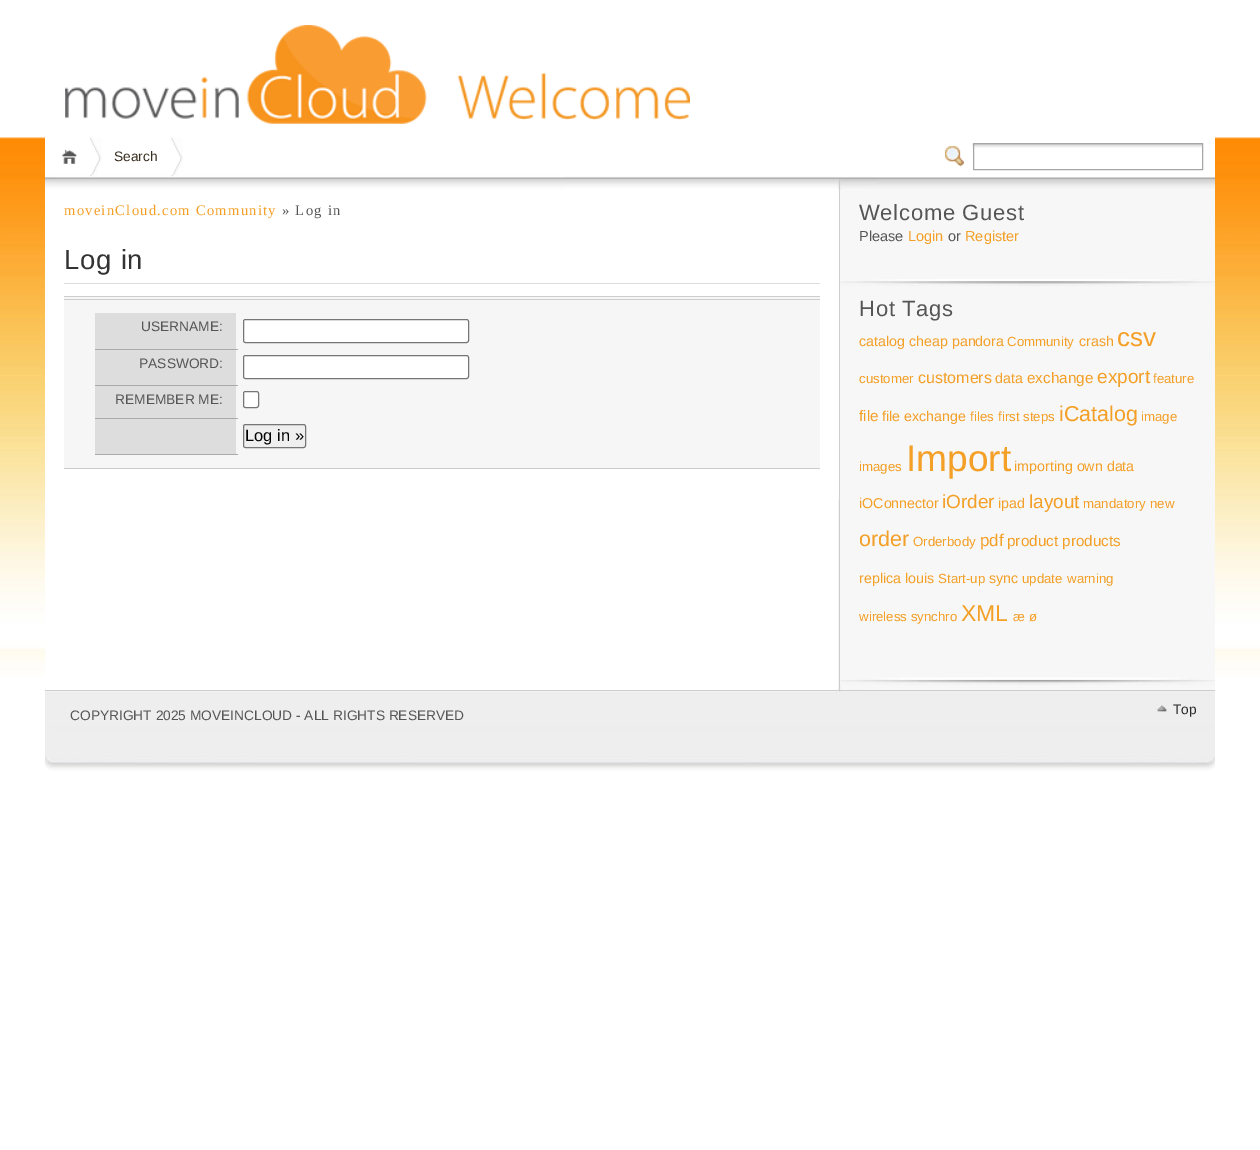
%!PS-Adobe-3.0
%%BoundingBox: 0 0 1260 1150
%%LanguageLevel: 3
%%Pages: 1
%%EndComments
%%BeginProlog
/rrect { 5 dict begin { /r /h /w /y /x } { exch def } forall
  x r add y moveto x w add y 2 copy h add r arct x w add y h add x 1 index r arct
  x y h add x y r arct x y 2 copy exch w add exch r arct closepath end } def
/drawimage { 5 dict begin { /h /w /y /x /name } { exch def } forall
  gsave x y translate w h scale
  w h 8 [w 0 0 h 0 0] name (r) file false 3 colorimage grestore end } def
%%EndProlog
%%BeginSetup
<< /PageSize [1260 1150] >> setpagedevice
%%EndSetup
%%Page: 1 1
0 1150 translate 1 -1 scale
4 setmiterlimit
1 setgray
0 0 1260 1150 rectfill
(images/1.raw) 0 137 1260 540 drawimage
(images/2.raw) 45 137 1170 53 drawimage
(images/3.raw) 65 25 625 99 drawimage
(images/4.raw) 62 149 15 15 drawimage
(images/5.raw) 90 137 12 40 drawimage
(images/6.raw) 171 137 12 40 drawimage
(images/7.raw) 945 146 20 21 drawimage
(images/8.raw) 972 143 230 5 drawimage
0.651 setgray
973.5 143.5 229 26 rectstroke
1 setgray
45 500 794 177 rectfill
(images/9.raw) 838 190 377 500 drawimage
45 190 794 310 rectfill
0.867 setgray
64 283 756 1 rectfill
0.965 setgray
64 297 756 171 rectfill
0.8 setgray
64 296 756 1 rectfill
64 299 756 1 rectfill
64 468 756 1 rectfill
0.867 setgray
95 313 141 36 rectfill
0.667 setgray
95 349 143 1 rectfill
1 setgray
243.5 319.5 225 23 2 rrect gsave fill grestore
0.463 setgray
stroke
0.867 setgray
95 350 141 35 rectfill
0.667 setgray
95 385 143 1 rectfill
1 setgray
243.5 355.5 225 23 2 rrect gsave fill grestore
0.463 setgray
stroke
0.867 setgray
95 386 141 32 rectfill
0.667 setgray
95 418 143 1 rectfill
1 setgray
243.5 391.5 15 16 2 rrect gsave fill grestore
0.463 setgray
stroke
0.867 setgray
95 419 141 35 rectfill
0.667 setgray
95 454 143 1 rectfill
0.937 setgray
243.5 424.5 62 23 2 rrect gsave fill grestore
0.463 setgray
stroke
0.969 setgray
840 190 1 488 rectfill
(images/10.raw) 840 279 375 7 drawimage
(images/11.raw) 840 677 375 8 drawimage
(images/12.raw) 45 691 1170 80 drawimage
0.8 setgray
45 690 1170 1 rectfill
(images/13.raw) 1157 705 10 7 drawimage
/LiberationSans-Regular [13.75 0 0 -13.75 0 0] selectfont
0.22 0.18 0.122 setrgbcolor
114 161 moveto (Search) show
/LiberationSerif-Regular [14.6 0 0 -14.6 0 0] selectfont
0.957 0.624 0.145 setrgbcolor
64 215 moveto 1.25 0 (moveinCloud.com Community) ashow
0.333 setgray
282 215 moveto 1.25 0 (» Log in) ashow
/LiberationSans-Regular [27.5 0 0 -27.5 0 0] selectfont
0.2 setgray
64 269 moveto 0.75 0 (Log in) ashow
/LiberationSans-Regular [13.75 0 0 -13.75 0 0] selectfont
0.333 setgray
141 331 moveto (USERNAME:) show
139 368 moveto (PASSWORD:) show
115 404 moveto (REMEMBER ME:) show
/LiberationSans-Regular [16.5 0 0 -16.5 0 0] selectfont
0 setgray
245 441 moveto (Log in ») show
/LiberationSans-Regular [22 0 0 -22 0 0] selectfont
0.333 setgray
859 220 moveto 0.7 0 (Welcome Guest) ashow
/LiberationSans-Regular [14.5 0 0 -14.5 0 0] selectfont
859 241 moveto (Please) show
0.957 0.624 0.145 setrgbcolor
908 241 moveto (Login) show
0.333 setgray
948 241 moveto (or) show
0.957 0.624 0.145 setrgbcolor
965 241 moveto (Register) show
/LiberationSans-Regular [22 0 0 -22 0 0] selectfont
0.333 setgray
859 316 moveto 0.7 0 (Hot Tags) ashow
/LiberationSans-Regular [14.25 0 0 -14.25 0 0] selectfont
0.957 0.624 0.145 setrgbcolor
859 346 moveto (catalog cheap pandora) show
/LiberationSans-Regular [13.25 0 0 -13.25 0 0] selectfont
1007 346 moveto (Community) show
/LiberationSans-Regular [14.25 0 0 -14.25 0 0] selectfont
1079 346 moveto (crash) show
/LiberationSans-Regular [26 0 0 -26 0 0] selectfont
1117 346 moveto (csv) show
/LiberationSans-Regular [13.25 0 0 -13.25 0 0] selectfont
859 383 moveto (customer) show
/LiberationSans-Regular [16 0 0 -16 0 0] selectfont
918 383 moveto (customers) show
/LiberationSans-Regular [14.25 0 0 -14.25 0 0] selectfont
995 383 moveto (data) show
/LiberationSans-Regular [15.25 0 0 -15.25 0 0] selectfont
1027 383 moveto (exchange) show
/LiberationSans-Regular [19 0 0 -19 0 0] selectfont
1097 383 moveto (export) show
/LiberationSans-Regular [13.25 0 0 -13.25 0 0] selectfont
1153 383 moveto (feature) show
/LiberationSans-Regular [15.25 0 0 -15.25 0 0] selectfont
859 421 moveto (file) show
/LiberationSans-Regular [14.25 0 0 -14.25 0 0] selectfont
882 421 moveto (file exchange) show
/LiberationSans-Regular [13.25 0 0 -13.25 0 0] selectfont
970 421 moveto (files) show
998 421 moveto (first steps) show
/LiberationSans-Regular [21.5 0 0 -21.5 0 0] selectfont
1059 421 moveto (iCatalog) show
/LiberationSans-Regular [13.25 0 0 -13.25 0 0] selectfont
1141 421 moveto (image) show
859 471 moveto (images) show
/LiberationSans-Regular [37 0 0 -37 0 0] selectfont
906 471 moveto (Import) show
/LiberationSans-Regular [14.25 0 0 -14.25 0 0] selectfont
1014 471 moveto (importing own data) show
859 508 moveto (iOConnector) show
/LiberationSans-Regular [19 0 0 -19 0 0] selectfont
942 508 moveto (iOrder) show
/LiberationSans-Regular [14.25 0 0 -14.25 0 0] selectfont
998 508 moveto (ipad) show
/LiberationSans-Regular [19 0 0 -19 0 0] selectfont
1029 508 moveto (layout) show
/LiberationSans-Regular [13.25 0 0 -13.25 0 0] selectfont
1083 508 moveto (mandatory) show
1150 508 moveto (new) show
/LiberationSans-Regular [21.5 0 0 -21.5 0 0] selectfont
859 546 moveto (order) show
/LiberationSans-Regular [13.25 0 0 -13.25 0 0] selectfont
913 546 moveto (Orderbody) show
/LiberationSans-Regular [17 0 0 -17 0 0] selectfont
980 546 moveto (pdf) show
/LiberationSans-Regular [15.25 0 0 -15.25 0 0] selectfont
1007 546 moveto (product products) show
/LiberationSans-Regular [14.25 0 0 -14.25 0 0] selectfont
859 583 moveto (replica louis) show
/LiberationSans-Regular [13.25 0 0 -13.25 0 0] selectfont
938 583 moveto (Start-up) show
/LiberationSans-Regular [14.25 0 0 -14.25 0 0] selectfont
989 583 moveto (sync) show
/LiberationSans-Regular [13.25 0 0 -13.25 0 0] selectfont
1022 583 moveto (update) show
1067 583 moveto (warning) show
859 621 moveto (wireless synchro) show
/LiberationSans-Regular [23 0 0 -23 0 0] selectfont
961 621 moveto (XML) show
/LiberationSans-Regular [13.25 0 0 -13.25 0 0] selectfont
1013 621 moveto (æ) show
1029 621 moveto (ø) show
/LiberationSans-Regular [13.75 0 0 -13.75 0 0] selectfont
0.333 setgray
70 720 moveto (COPYRIGHT 2025 MOVEINCLOUD - ALL RIGHTS RESERVED) show
0.165 setgray
1173 714 moveto (Top) show
showpage
%%EOF
